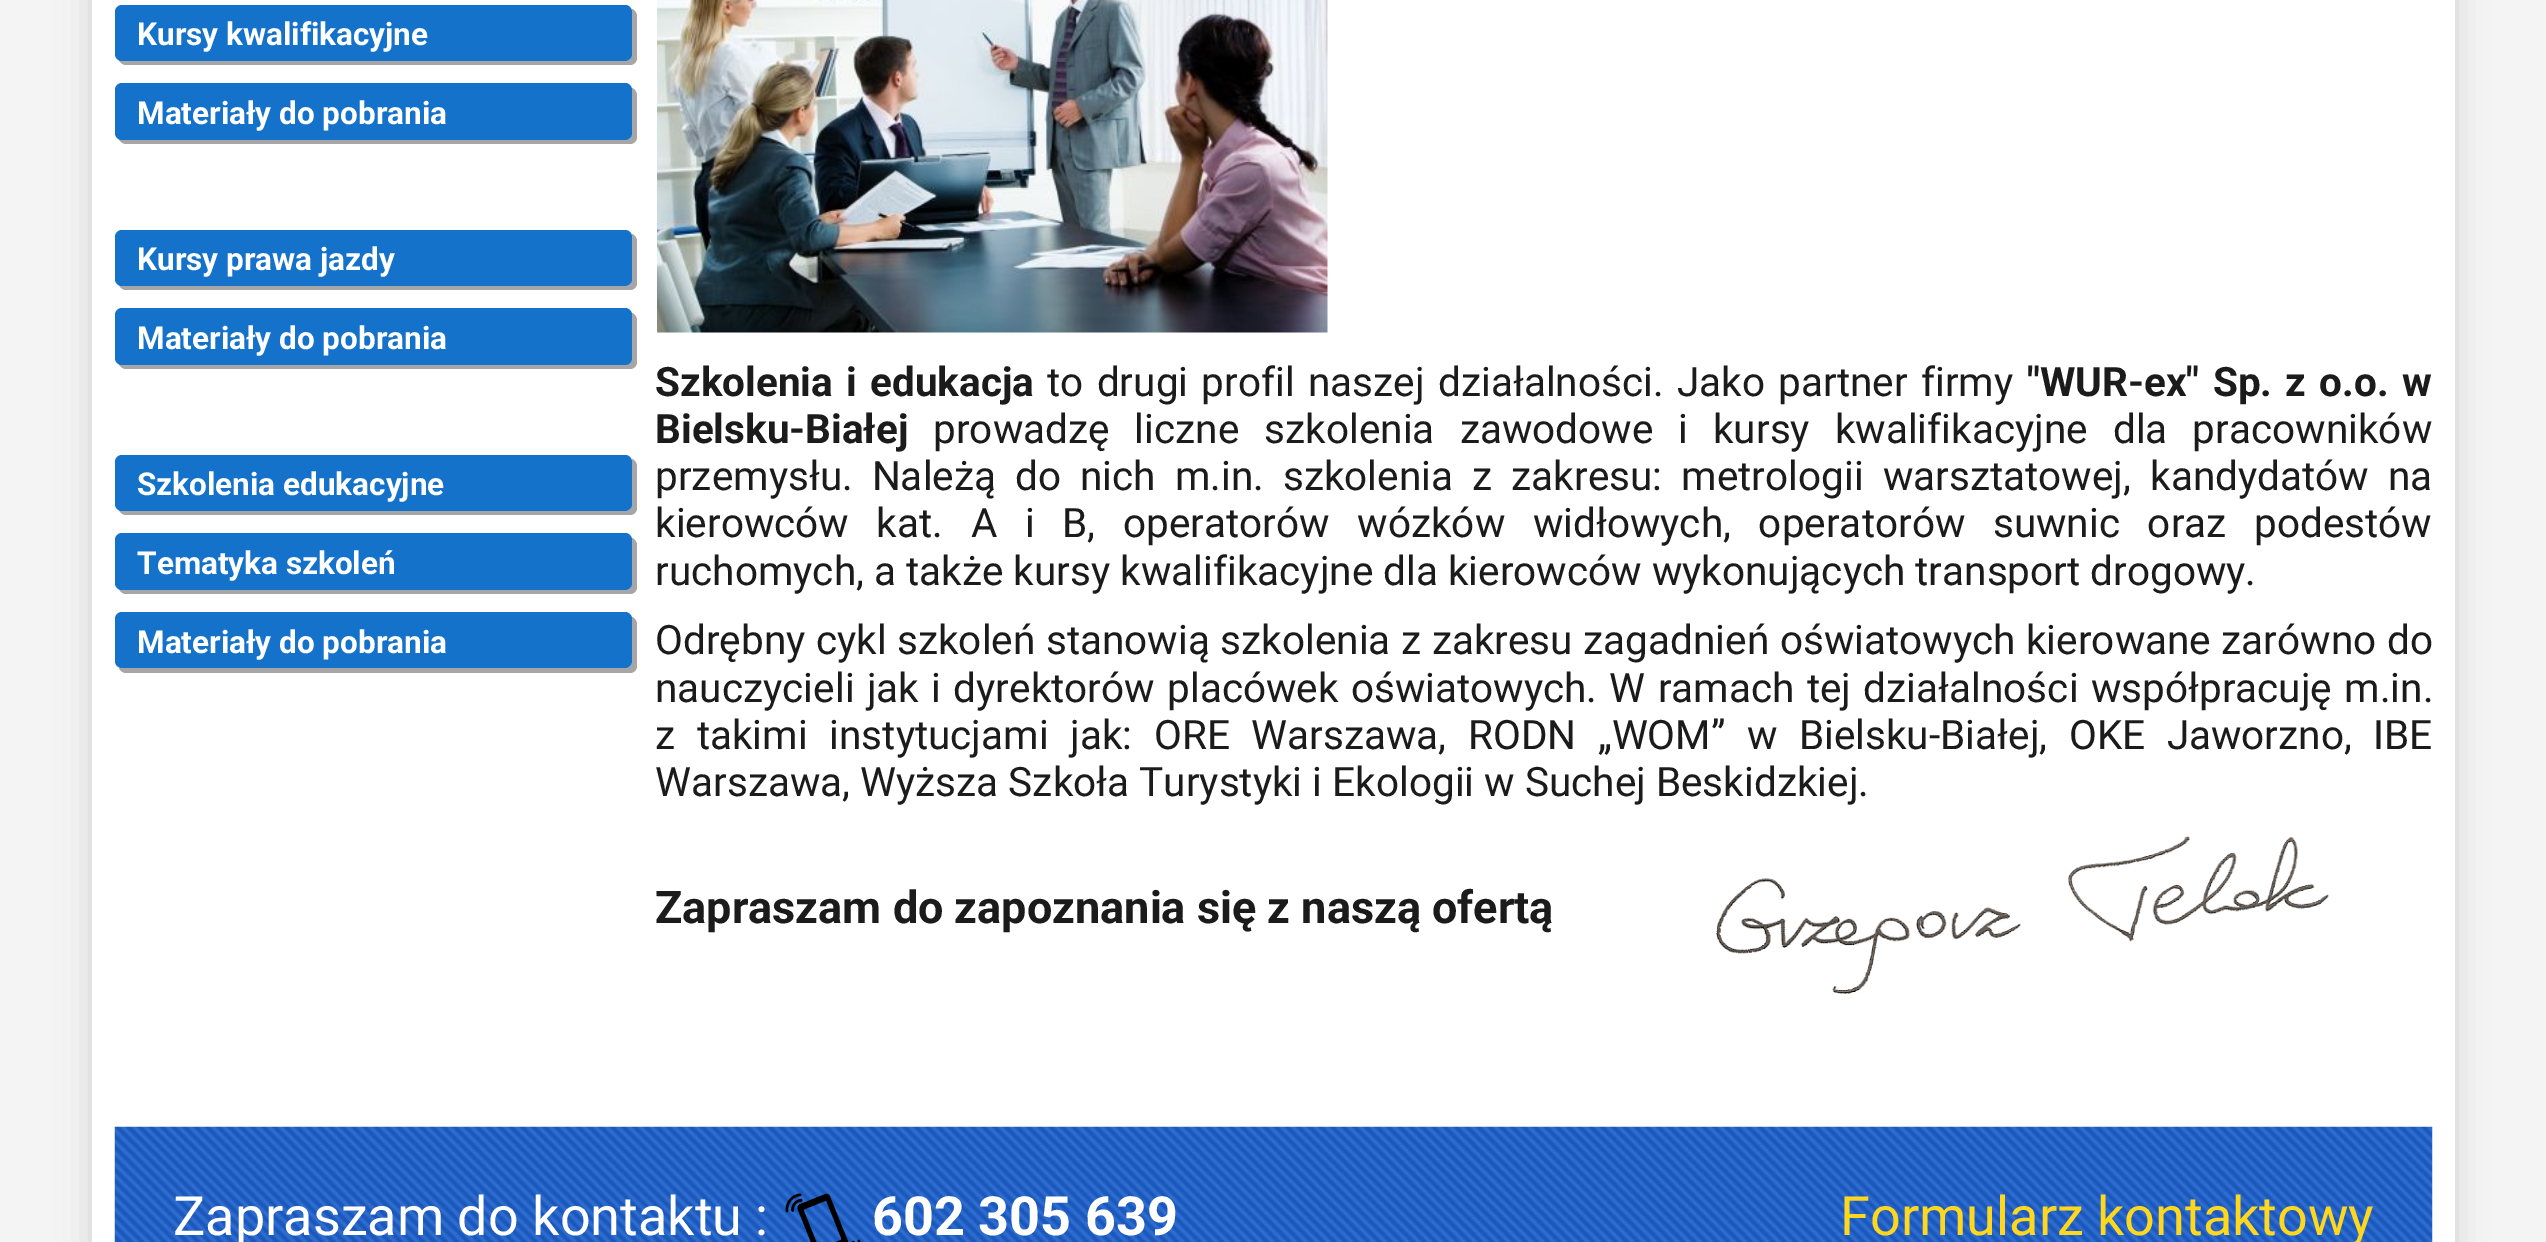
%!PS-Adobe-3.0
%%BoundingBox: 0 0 2546 1242
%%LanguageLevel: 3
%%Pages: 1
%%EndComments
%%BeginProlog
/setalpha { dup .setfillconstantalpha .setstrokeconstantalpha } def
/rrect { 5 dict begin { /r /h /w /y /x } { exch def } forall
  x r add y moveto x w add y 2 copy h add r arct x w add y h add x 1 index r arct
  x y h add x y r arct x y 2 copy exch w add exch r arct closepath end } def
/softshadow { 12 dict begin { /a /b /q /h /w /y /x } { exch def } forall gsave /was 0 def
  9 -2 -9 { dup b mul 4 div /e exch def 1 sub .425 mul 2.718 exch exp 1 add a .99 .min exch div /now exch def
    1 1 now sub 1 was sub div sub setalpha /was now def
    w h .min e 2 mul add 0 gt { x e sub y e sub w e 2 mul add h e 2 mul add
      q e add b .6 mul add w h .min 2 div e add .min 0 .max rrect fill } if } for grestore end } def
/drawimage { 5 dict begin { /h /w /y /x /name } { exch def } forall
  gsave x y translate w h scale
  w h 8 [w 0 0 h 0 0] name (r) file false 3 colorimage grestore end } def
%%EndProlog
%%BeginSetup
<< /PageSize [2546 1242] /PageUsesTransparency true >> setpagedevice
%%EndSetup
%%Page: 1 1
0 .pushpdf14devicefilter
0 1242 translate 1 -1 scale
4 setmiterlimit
0.957 setgray
0 0 2546 1242 rectfill
0.812 setgray
92 -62 2363 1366 11 17 1 softshadow
1 setgray
92 0 2363 1242 rectfill
0.651 setgray
newpath 119 60 moveto 120 63 123 65 126 65 curveto 630 65 lineto 634 65 637 62 637 58 curveto 637 16 lineto 637 13 635 10 632 9 curveto 632 47 lineto 632 52 633 61 626 61 curveto closepath fill
0.078 0.447 0.792 setrgbcolor
115 5 517 56 7 rrect fill
0.651 setgray
newpath 119 139 moveto 120 142 123 144 126 144 curveto 630 144 lineto 634 144 637 141 637 137 curveto 637 95 lineto 637 92 635 89 632 88 curveto 632 126 lineto 632 131 633 139 626 140 curveto closepath fill
0.078 0.447 0.792 setrgbcolor
115 83 517 57 7 rrect fill
0.651 setgray
newpath 119 285 moveto 120 288 123 290 126 290 curveto 630 290 lineto 634 290 637 287 637 283 curveto 637 241 lineto 637 238 635 235 632 234 curveto 632 272 lineto 632 277 633 286 626 286 curveto closepath fill
0.078 0.447 0.792 setrgbcolor
115 230 517 56 7 rrect fill
0.651 setgray
newpath 119 364 moveto 120 367 123 369 126 369 curveto 630 369 lineto 634 369 637 366 637 362 curveto 637 320 lineto 637 317 635 314 632 313 curveto 632 351 lineto 632 356 633 364 626 364 curveto closepath fill
0.078 0.447 0.792 setrgbcolor
115 308 517 57 7 rrect fill
0.651 setgray
newpath 119 510 moveto 120 513 123 515 126 515 curveto 630 515 lineto 634 515 637 512 637 508 curveto 637 466 lineto 637 463 635 460 632 459 curveto 632 497 lineto 632 502 633 511 626 511 curveto closepath fill
0.078 0.447 0.792 setrgbcolor
115 455 517 56 7 rrect fill
0.651 setgray
newpath 119 589 moveto 120 592 123 594 126 594 curveto 630 594 lineto 634 594 637 591 637 587 curveto 637 545 lineto 637 542 635 539 632 538 curveto 632 576 lineto 632 581 633 589 626 590 curveto closepath fill
0.078 0.447 0.792 setrgbcolor
115 533 517 57 7 rrect fill
0.651 setgray
newpath 119 668 moveto 120 671 123 673 126 673 curveto 630 673 lineto 634 673 637 670 637 666 curveto 637 624 lineto 637 621 635 618 632 617 curveto 632 662 lineto 632 665 629 668 626 668 curveto 122 668 lineto closepath fill
0.078 0.447 0.792 setrgbcolor
115 612 517 56 7 rrect fill
(images/1.raw) 657 0 671 333 drawimage
(images/2.raw) 1713 836 616 161 drawimage
(images/3.raw) 114 1126 2319 116 drawimage
(images/4.raw) 785 1193 76 49 drawimage
/Roboto-Bold [31.5 0 0 -31.5 0 0] selectfont
1 setgray
137 45 moveto (Kursy kwalifikacyjne) show
137 124 moveto (Materiały do pobrania) show
137 270 moveto (Kursy prawa jazdy) show
137 349 moveto (Materiały do pobrania) show
137 495 moveto (Szkolenia edukacyjne) show
137 574 moveto (Tematyka szkoleń) show
137 653 moveto (Materiały do pobrania) show
/Roboto-Bold [40.5 0 0 -40.5 0 0] selectfont
0.106 setgray
655 396 moveto 3.25 0 32 (Szkolenia i edukacja) widthshow
/Roboto-Regular [40.5 0 0 -40.5 0 0] selectfont
1047 396 moveto 3.25 0 32 (to drugi profil naszej działalności. Jako partner firmy) widthshow
/Roboto-Bold [40.5 0 0 -40.5 0 0] selectfont
2027 396 moveto 3.25 0 32 ("WUR-ex" Sp. z o.o. w) widthshow
655 443 moveto (Bielsku-Białej) show
/Roboto-Regular [40.5 0 0 -40.5 0 0] selectfont
933 443 moveto 15 0 32 (prowadzę liczne szkolenia zawodowe i kursy kwalifikacyjne dla pracowników) widthshow
655 490 moveto 9 0 32 (przemysłu. Należą do nich m.in. szkolenia z zakresu: metrologii warsztatowej, kandydatów na) widthshow
655 537 moveto 17.6 0 32 (kierowców kat. A i B, operatorów wózków widłowych, operatorów suwnic oraz podestów) widthshow
655 585 moveto (ruchomych, a także kursy kwalifikacyjne dla kierowców wykonujących transport drogowy.) show
655 654 moveto 0.5 0 32 (Odrębny cykl szkoleń stanowią szkolenia z zakresu zagadnień oświatowych kierowane zarówno do) widthshow
655 702 moveto 2.25 0 32 (nauczycieli jak i dyrektorów placówek oświatowych. W ramach tej działalności współpracuję m.in.) widthshow
655 749 moveto 11.5 0 32 (z takimi instytucjami jak: ORE Warszawa, RODN „WOM” w Bielsku-Białej, OKE Jaworzno, IBE) widthshow
655 796 moveto (Warszawa, Wyższa Szkoła Turystyki i Ekologii w Suchej Beskidzkiej.) show
/Roboto-Bold [45 0 0 -45 0 0] selectfont
655 923 moveto (Zapraszam do zapoznania się z naszą ofertą) show
/Roboto-Regular [54 0 0 -54 0 0] selectfont
1 setgray
173 1235 moveto (Zapraszam do kontaktu :) show
/Roboto-Bold [54 0 0 -54 0 0] selectfont
872 1235 moveto (602 305 639) show
/Roboto-Regular [54 0 0 -54 0 0] selectfont
1 0.847 0.118 setrgbcolor
1840 1235 moveto (Formularz kontaktowy) show
.poppdf14devicefilter showpage
%%EOF
